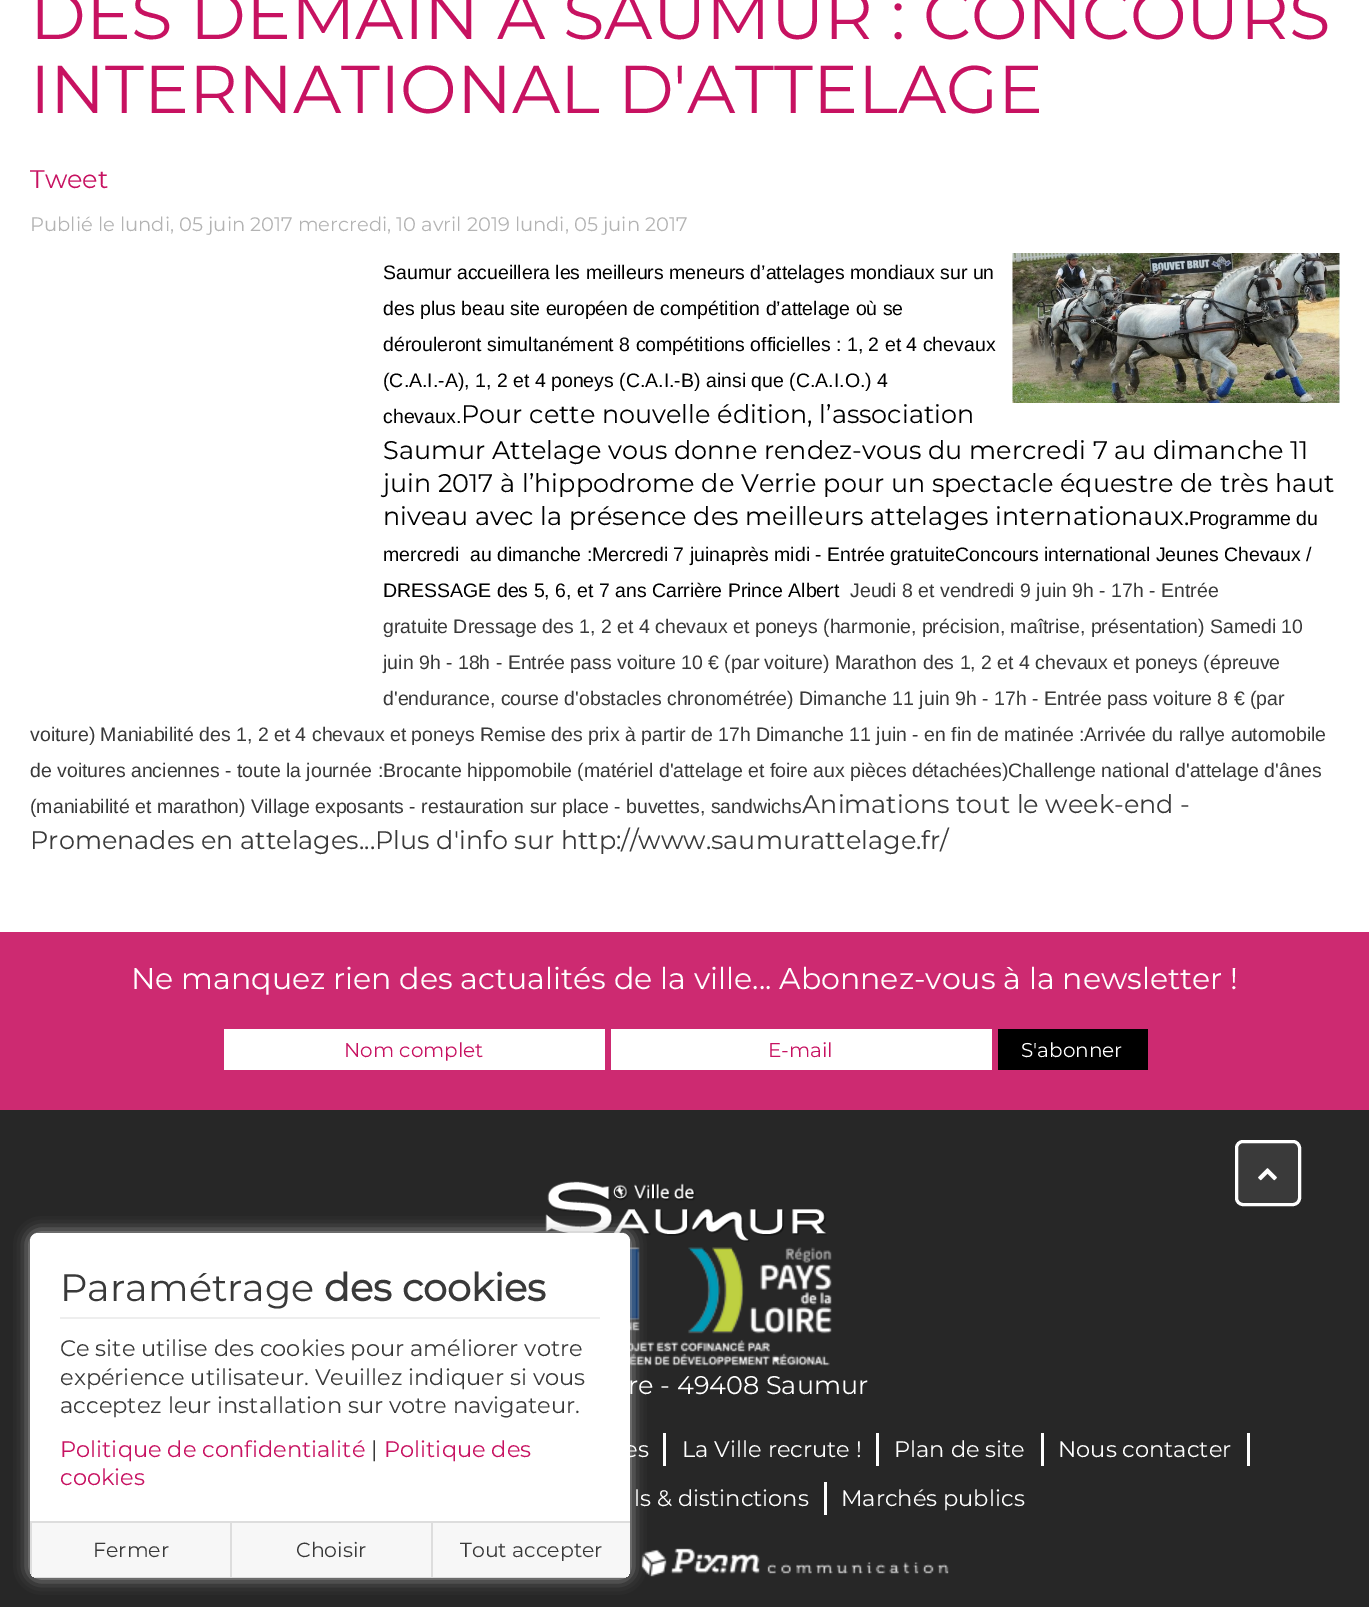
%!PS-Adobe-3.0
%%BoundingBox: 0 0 1369 1607
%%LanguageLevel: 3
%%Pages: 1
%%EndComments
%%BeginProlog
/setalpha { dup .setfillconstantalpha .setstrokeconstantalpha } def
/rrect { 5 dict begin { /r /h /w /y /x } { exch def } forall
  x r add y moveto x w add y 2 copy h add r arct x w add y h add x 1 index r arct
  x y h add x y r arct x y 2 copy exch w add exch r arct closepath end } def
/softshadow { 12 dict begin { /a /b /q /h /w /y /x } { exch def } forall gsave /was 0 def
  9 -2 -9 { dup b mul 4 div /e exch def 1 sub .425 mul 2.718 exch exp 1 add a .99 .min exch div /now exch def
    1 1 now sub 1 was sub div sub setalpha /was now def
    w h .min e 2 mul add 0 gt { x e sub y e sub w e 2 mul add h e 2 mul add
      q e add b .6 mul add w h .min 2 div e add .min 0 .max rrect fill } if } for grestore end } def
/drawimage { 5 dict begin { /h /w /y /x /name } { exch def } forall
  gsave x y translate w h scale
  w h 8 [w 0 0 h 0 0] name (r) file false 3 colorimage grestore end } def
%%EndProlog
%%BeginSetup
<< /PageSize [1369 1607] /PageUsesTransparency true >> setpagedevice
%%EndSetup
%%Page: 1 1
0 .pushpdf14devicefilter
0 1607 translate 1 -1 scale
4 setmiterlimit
1 setgray
0 0 1369 1607 rectfill
(images/1.raw) 1012 253 328 150 drawimage
0.153 setgray
0 1110 1369 497 rectfill
(images/3.raw) 545 1181 282 61 drawimage
(images/4.raw) 630 1247 202 119 drawimage
(images/5.raw) 641 1548 308 29 drawimage
0.702 setgray
30 1233 600 345 8 7.5 1 softshadow
1 setgray
30 1233 600 345 8 rrect fill
0.933 setgray
60 1317 540 2 rectfill
gsave
30 1233 600 345 8 rrect clip newpath
0.969 setgray
32 1523 198 54 rectfill
grestore
0.867 setgray
30 1521 600 2 rectfill
gsave
30 1233 600 345 8 rrect clip newpath
30 1577 200 1 rectfill
30 1521 2 57 rectfill
grestore
0.969 setgray
232 1523 199 54 rectfill
0.867 setgray
230 1577 201 1 rectfill
230 1521 2 57 rectfill
gsave
30 1233 600 345 8 rrect clip newpath
0.969 setgray
433 1523 197 54 rectfill
0.867 setgray
431 1577 199 1 rectfill
grestore
431 1521 2 57 rectfill
0.804 0.165 0.443 setrgbcolor
0 932 1369 178 rectfill
1 setgray
224 1029 381 41 rectfill
611 1029 381 41 rectfill
0 setgray
998 1029 150 41 rectfill
0.227 setgray
1236.5 1141.5 63 63 6.5 rrect gsave fill grestore
1 setgray
3 setlinewidth
stroke
(images/2.raw) 1258 1168 19 13 drawimage
663 1433 3 33 rectfill
876 1433 3 33 rectfill
1041 1433 3 33 rectfill
1247 1433 3 33 rectfill
824 1482 3 33 rectfill
/Montserrat-Thin [67.5 0 0 -67.5 0 0] selectfont
0.78 0.071 0.38 setrgbcolor
30 39 moveto (DÈS DEMAIN À SAUMUR : CONCOURS) show
30 113 moveto (INTERNATIONAL D'ATTELAGE) show
/Montserrat-Thin [25.5 0 0 -25.5 0 0] selectfont
30 188 moveto (Tweet) show
/Montserrat-Thin [19.5 0 0 -19.5 0 0] selectfont
0.702 setgray
30 231 moveto (Publié le lundi, 05 juin 2017 mercredi, 10 avril 2019 lundi, 05 juin 2017) show
/LiberationSans-Regular [19.5 0 0 -19.5 0 0] selectfont
0 setgray
383 279 moveto (Saumur accueillera les meilleurs meneurs d’attelages mondiaux sur un) show
383 315 moveto (des plus beau site européen de compétition d’attelage où se) show
383 351 moveto (dérouleront simultanément 8 compétitions officielles : 1, 2 et 4 chevaux) show
383 387 moveto (\(C.A.I.-A\), 1, 2 et 4 poneys \(C.A.I.-B\) ainsi que \(C.A.I.O.\) 4) show
383 423 moveto (chevaux.) show
/Montserrat-Thin [25.5 0 0 -25.5 0 0] selectfont
461 423 moveto (Pour cette nouvelle édition, l’association) show
383 459 moveto (Saumur Attelage vous donne rendez-vous du mercredi 7 au dimanche 11) show
383 492 moveto (juin 2017 à l’hippodrome de Verrie pour un spectacle équestre de très haut) show
383 525 moveto (niveau avec la présence des meilleurs attelages internationaux.) show
/LiberationSans-Regular [19.5 0 0 -19.5 0 0] selectfont
1189 525 moveto (Programme du) show
383 561 moveto (mercredi  au dimanche :Mercredi 7 juinaprès midi - Entrée gratuiteConcours international Jeunes Chevaux /) show
383 597 moveto (DRESSAGE des 5, 6, et 7 ans Carrière Prince Albert) show
0.224 setgray
850 597 moveto (Jeudi 8 et vendredi 9 juin 9h - 17h - Entrée) show
383 633 moveto (gratuite Dressage des 1, 2 et 4 chevaux et poneys \(harmonie, précision, maîtrise, présentation\) Samedi 10) show
383 669 moveto (juin 9h - 18h - Entrée pass voiture 10 € \(par voiture\) Marathon des 1, 2 et 4 chevaux et poneys \(épreuve) show
383 705 moveto (d'endurance, course d'obstacles chronométrée\) Dimanche 11 juin 9h - 17h - Entrée pass voiture 8 € \(par) show
30 741 moveto (voiture\) Maniabilité des 1, 2 et 4 chevaux et poneys Remise des prix à partir de 17h Dimanche 11 juin - en fin de matinée :Arrivée du rallye automobile) show
30 777 moveto (de voitures anciennes - toute la journée) show
378 777 moveto (:Brocante hippomobile \(matériel d'attelage et foire aux pièces détachées\)Challenge national d'attelage d'ânes) show
30 813 moveto (\(maniabilité et marathon\) Village exposants - restauration sur place - buvettes, sandwichs) show
/Montserrat-Thin [25.5 0 0 -25.5 0 0] selectfont
802 813 moveto (Animations tout le week-end -) show
30 849 moveto (Promenades en attelages...Plus d'info sur http://www.saumurattelage.fr/) show
/Montserrat-Thin [38.25 0 0 -38.25 0 0] selectfont
60 1301 moveto (Paramétrage) show
/Montserrat-Bold [38.25 0 0 -38.25 0 0] selectfont
324 1301 moveto (des cookies) show
/Montserrat-Thin [22.5 0 0 -22.5 0 0] selectfont
60 1356 moveto (Ce site utilise des cookies pour améliorer votre) show
60 1385 moveto (expérience utilisateur. Veuillez indiquer si vous) show
60 1413 moveto (acceptez leur installation sur votre navigateur.) show
0.78 0.071 0.38 setrgbcolor
60 1457 moveto (Politique de confidentialité) show
0.224 setgray
371 1457 moveto (|) show
0.78 0.071 0.38 setrgbcolor
384 1457 moveto (Politique des) show
60 1485 moveto (cookies) show
/Montserrat-Thin [20.5 0 0 -20.5 0 0] selectfont
0.224 setgray
93 1557 moveto (Fermer) show
296 1557 moveto (Choisir) show
460 1557 moveto (Tout accepter) show
/Montserrat-Thin [30 0 0 -30 0 0] selectfont
1 setgray
131 989 moveto (Ne manquez rien des actualités de la ville... Abonnez-vous à la newsletter !) show
/Montserrat-Thin [20 0 0 -20 0 0] selectfont
0.78 0.071 0.38 setrgbcolor
344 1057 moveto (Nom complet) show
768 1057 moveto (E-mail) show
1 setgray
1021 1057 moveto (S'abonner) show
/Montserrat-Thin [25.5 0 0 -25.5 0 0] selectfont
628 1394 moveto (re - 49408 Saumur) show
/Montserrat-Thin [22.5 0 0 -22.5 0 0] selectfont
624 1457 moveto (es) show
682 1457 moveto (La Ville recrute !) show
894 1457 moveto (Plan de site) show
1058 1457 moveto (Nous contacter) show
634 1506 moveto (ls & distinctions) show
841 1506 moveto (Marchés publics) show
.poppdf14devicefilter showpage
%%EOF
